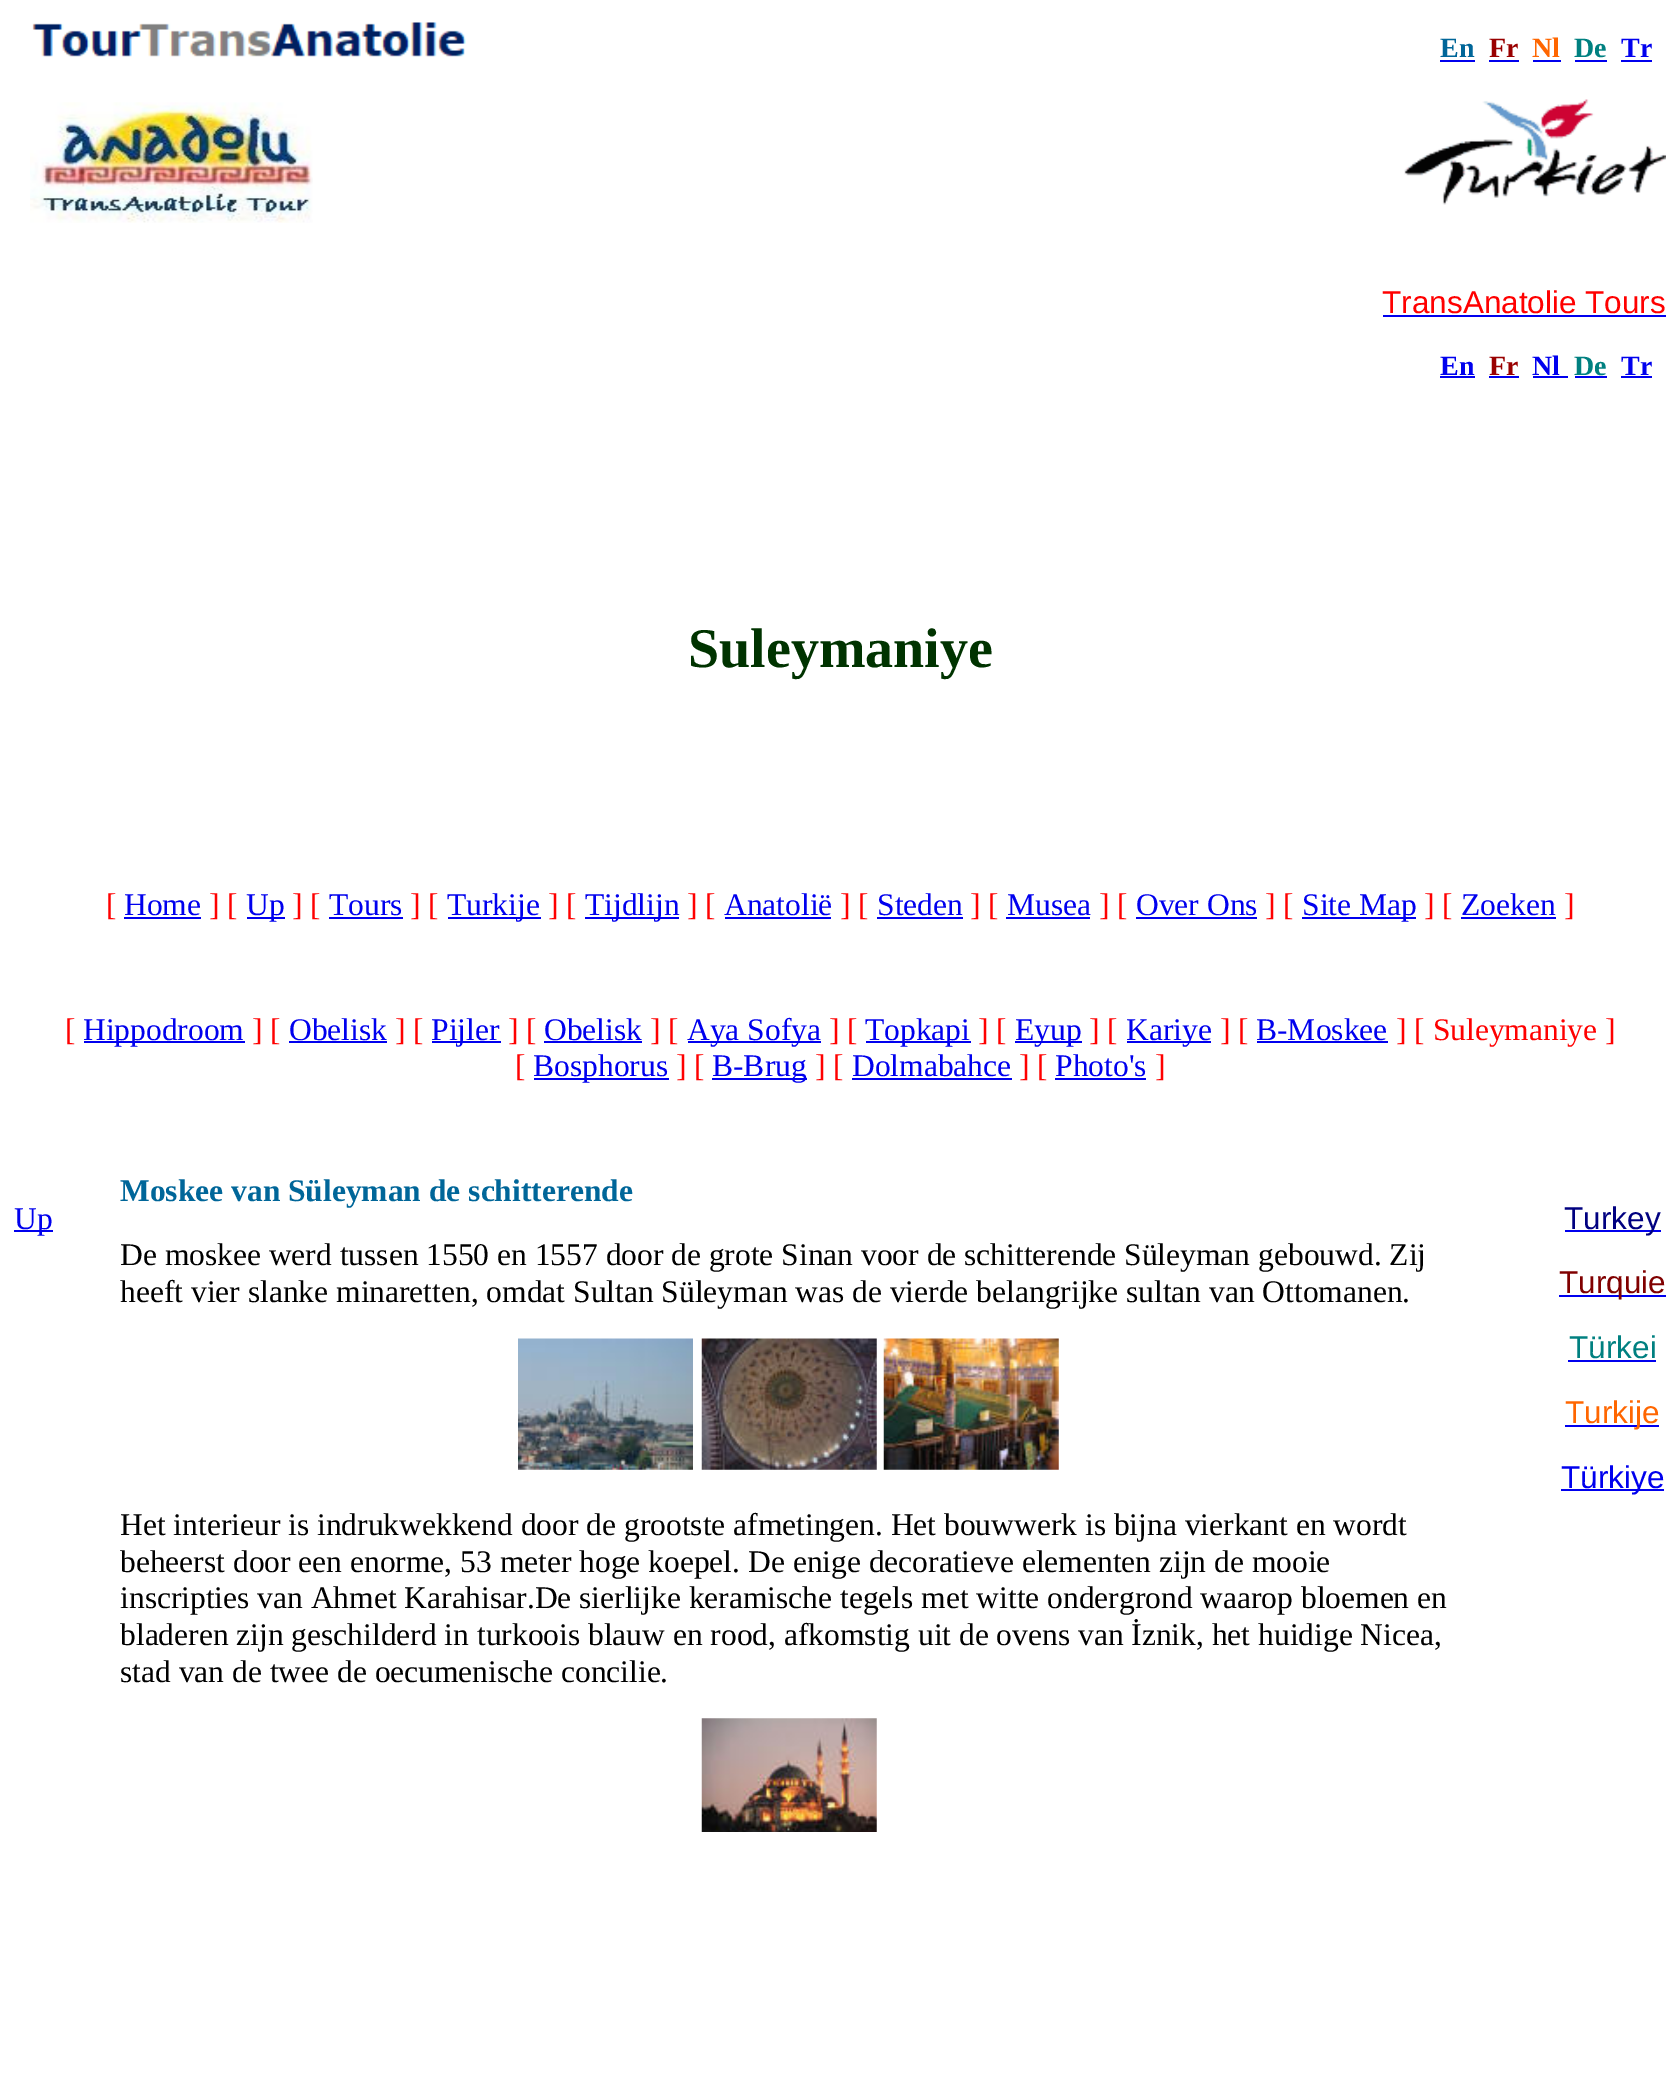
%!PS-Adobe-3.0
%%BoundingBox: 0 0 1679 2081
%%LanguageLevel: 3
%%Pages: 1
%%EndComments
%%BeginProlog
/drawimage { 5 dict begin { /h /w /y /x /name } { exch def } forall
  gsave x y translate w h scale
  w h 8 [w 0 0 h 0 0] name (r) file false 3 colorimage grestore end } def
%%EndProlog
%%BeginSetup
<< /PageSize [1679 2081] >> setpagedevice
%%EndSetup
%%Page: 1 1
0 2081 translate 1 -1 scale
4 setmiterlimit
1 setgray
0 0 1679 2081 rectfill
(images/1.raw) 32 22 434 35 drawimage
(images/2.raw) 30 102 283 121 drawimage
0 0 0.933 setrgbcolor
1440 60 35 2 rectfill
1489 60 30 2 rectfill
1533 60 28 2 rectfill
1575 60 32 2 rectfill
1621 60 31 2 rectfill
(images/3.raw) 1404 99 262 106 drawimage
1383 315 283 2 rectfill
1440 376 35 2 rectfill
1489 376 30 2 rectfill
1533 376 35 2 rectfill
1575 376 32 2 rectfill
1621 376 31 2 rectfill
124 917 77 2 rectfill
247 917 38 2 rectfill
329 917 74 2 rectfill
448 917 93 2 rectfill
585 917 94 2 rectfill
725 917 106 2 rectfill
877 917 86 2 rectfill
1006 917 84 2 rectfill
1136 917 121 2 rectfill
1302 917 114 2 rectfill
1461 917 95 2 rectfill
84 1041 161 2 rectfill
289 1041 98 2 rectfill
432 1041 69 2 rectfill
544 1041 98 2 rectfill
688 1041 133 2 rectfill
866 1041 105 2 rectfill
1015 1041 67 2 rectfill
1127 1041 84 2 rectfill
1257 1041 131 2 rectfill
534 1078 135 2 rectfill
712 1078 95 2 rectfill
852 1078 160 2 rectfill
1055 1078 91 2 rectfill
14 1230 39 2 rectfill
(images/4.raw) 518 1338 175 132 drawimage
(images/5.raw) 701 1338 176 132 drawimage
(images/6.raw) 883 1338 176 132 drawimage
(images/7.raw) 701 1718 176 114 drawimage
1565 1230 96 2 rectfill
1559 1295 107 2 rectfill
1568 1360 88 2 rectfill
1565 1425 94 2 rectfill
1561 1489 103 2 rectfill
/LiberationSerif-Bold [28 0 0 -28 0 0] selectfont
0 0.4 0.6 setrgbcolor
1440 57 moveto (En) show
0.6 0 0 setrgbcolor
1489 57 moveto (Fr) show
1 0.4 0 setrgbcolor
1532 57 moveto (Nl) show
0 0.502 0.502 setrgbcolor
1574 57 moveto (De) show
0 0 0.933 setrgbcolor
1621 57 moveto (Tr) show
/LiberationSans-Regular [31.5 0 0 -31.5 0 0] selectfont
1 0 0 setrgbcolor
1382 313 moveto (TransAnatolie Tours) show
/LiberationSerif-Bold [28 0 0 -28 0 0] selectfont
0 0 0.933 setrgbcolor
1440 375 moveto (En) show
0.6 0 0 setrgbcolor
1489 375 moveto (Fr) show
0 0 0.933 setrgbcolor
1532 375 moveto (Nl) show
0 0.502 0.502 setrgbcolor
1574 375 moveto (De) show
0 0 0.933 setrgbcolor
1621 375 moveto (Tr) show
/LiberationSerif-Bold [56 0 0 -56 0 0] selectfont
0 0.2 0 setrgbcolor
688 667 moveto (Suleymaniye) show
/LiberationSerif-Regular [31.5 0 0 -31.5 0 0] selectfont
1 0 0 setrgbcolor
106 915 moveto ([) show
0 0 0.933 setrgbcolor
124 915 moveto (Home) show
1 0 0 setrgbcolor
209 915 moveto (] [) show
0 0 0.933 setrgbcolor
246 915 moveto (Up) show
1 0 0 setrgbcolor
292 915 moveto (] [) show
0 0 0.933 setrgbcolor
329 915 moveto (Tours) show
1 0 0 setrgbcolor
410 915 moveto (] [) show
0 0 0.933 setrgbcolor
447 915 moveto (Turkije) show
1 0 0 setrgbcolor
548 915 moveto (] [) show
0 0 0.933 setrgbcolor
585 915 moveto (Tijdlijn) show
1 0 0 setrgbcolor
687 915 moveto (] [) show
0 0 0.933 setrgbcolor
724 915 moveto (Anatolië) show
1 0 0 setrgbcolor
840 915 moveto (] [) show
0 0 0.933 setrgbcolor
877 915 moveto (Steden) show
1 0 0 setrgbcolor
970 915 moveto (] [) show
0 0 0.933 setrgbcolor
1007 915 moveto (Musea) show
1 0 0 setrgbcolor
1099 915 moveto (] [) show
0 0 0.933 setrgbcolor
1136 915 moveto (Over Ons) show
1 0 0 setrgbcolor
1265 915 moveto (] [) show
0 0 0.933 setrgbcolor
1302 915 moveto (Site Map) show
1 0 0 setrgbcolor
1424 915 moveto (] [) show
0 0 0.933 setrgbcolor
1461 915 moveto (Zoeken) show
1 0 0 setrgbcolor
1564 915 moveto (]) show
65 1040 moveto ([) show
0 0 0.933 setrgbcolor
83 1040 moveto (Hippodroom) show
1 0 0 setrgbcolor
252 1040 moveto (] [) show
0 0 0.933 setrgbcolor
289 1040 moveto (Obelisk) show
1 0 0 setrgbcolor
395 1040 moveto (] [) show
0 0 0.933 setrgbcolor
431 1040 moveto (Pijler) show
1 0 0 setrgbcolor
508 1040 moveto (] [) show
0 0 0.933 setrgbcolor
544 1040 moveto (Obelisk) show
1 0 0 setrgbcolor
650 1040 moveto (] [) show
0 0 0.933 setrgbcolor
687 1040 moveto (Aya Sofya) show
1 0 0 setrgbcolor
829 1040 moveto (] [) show
0 0 0.933 setrgbcolor
865 1040 moveto (Topkapi) show
1 0 0 setrgbcolor
978 1040 moveto (] [) show
0 0 0.933 setrgbcolor
1015 1040 moveto (Eyup) show
1 0 0 setrgbcolor
1089 1040 moveto (] [) show
0 0 0.933 setrgbcolor
1126 1040 moveto (Kariye) show
1 0 0 setrgbcolor
1220 1040 moveto (] [) show
0 0 0.933 setrgbcolor
1256 1040 moveto (B-Moskee) show
1 0 0 setrgbcolor
1396 1040 moveto (] [ Suleymaniye ]) show
515 1076 moveto ([) show
0 0 0.933 setrgbcolor
533 1076 moveto (Bosphorus) show
1 0 0 setrgbcolor
676 1076 moveto (] [) show
0 0 0.933 setrgbcolor
712 1076 moveto (B-Brug) show
1 0 0 setrgbcolor
815 1076 moveto (] [) show
0 0 0.933 setrgbcolor
852 1076 moveto (Dolmabahce) show
1 0 0 setrgbcolor
1019 1076 moveto (] [) show
0 0 0.933 setrgbcolor
1055 1076 moveto (Photo's) show
1 0 0 setrgbcolor
1155 1076 moveto (]) show
0 0 0.933 setrgbcolor
14 1229 moveto (Up) show
/LiberationSerif-Bold [31.5 0 0 -31.5 0 0] selectfont
0 0.4 0.6 setrgbcolor
120 1201 moveto (Moskee van Süleyman de schitterende) show
/LiberationSerif-Regular [31.5 0 0 -31.5 0 0] selectfont
0 setgray
120 1265 moveto (De moskee werd tussen 1550 en 1557 door de grote Sinan voor de schitterende Süleyman gebouwd. Zij) show
120 1302 moveto (heeft vier slanke minaretten, omdat Sultan Süleyman was de vierde belangrijke sultan van Ottomanen.) show
120 1535 moveto (Het interieur is indrukwekkend door de grootste afmetingen. Het bouwwerk is bijna vierkant en wordt) show
120 1572 moveto (beheerst door een enorme, 53 meter hoge koepel. De enige decoratieve elementen zijn de mooie) show
120 1608 moveto (inscripties van Ahmet Karahisar.De sierlijke keramische tegels met witte ondergrond waarop bloemen en) show
120 1645 moveto (bladeren zijn geschilderd in turkoois blauw en rood, afkomstig uit de ovens van İznik, het huidige Nicea,) show
120 1682 moveto (stad van de twee de oecumenische concilie.) show
/LiberationSans-Regular [31.5 0 0 -31.5 0 0] selectfont
0 0 0.502 setrgbcolor
1564 1229 moveto (Turkey) show
0.502 0 0 setrgbcolor
1559 1293 moveto (Turquie) show
0 0.502 0.502 setrgbcolor
1569 1358 moveto (Türkei) show
1 0.4 0 setrgbcolor
1565 1423 moveto (Turkije) show
0 0 0.933 setrgbcolor
1561 1488 moveto (Türkiye) show
showpage
%%EOF
